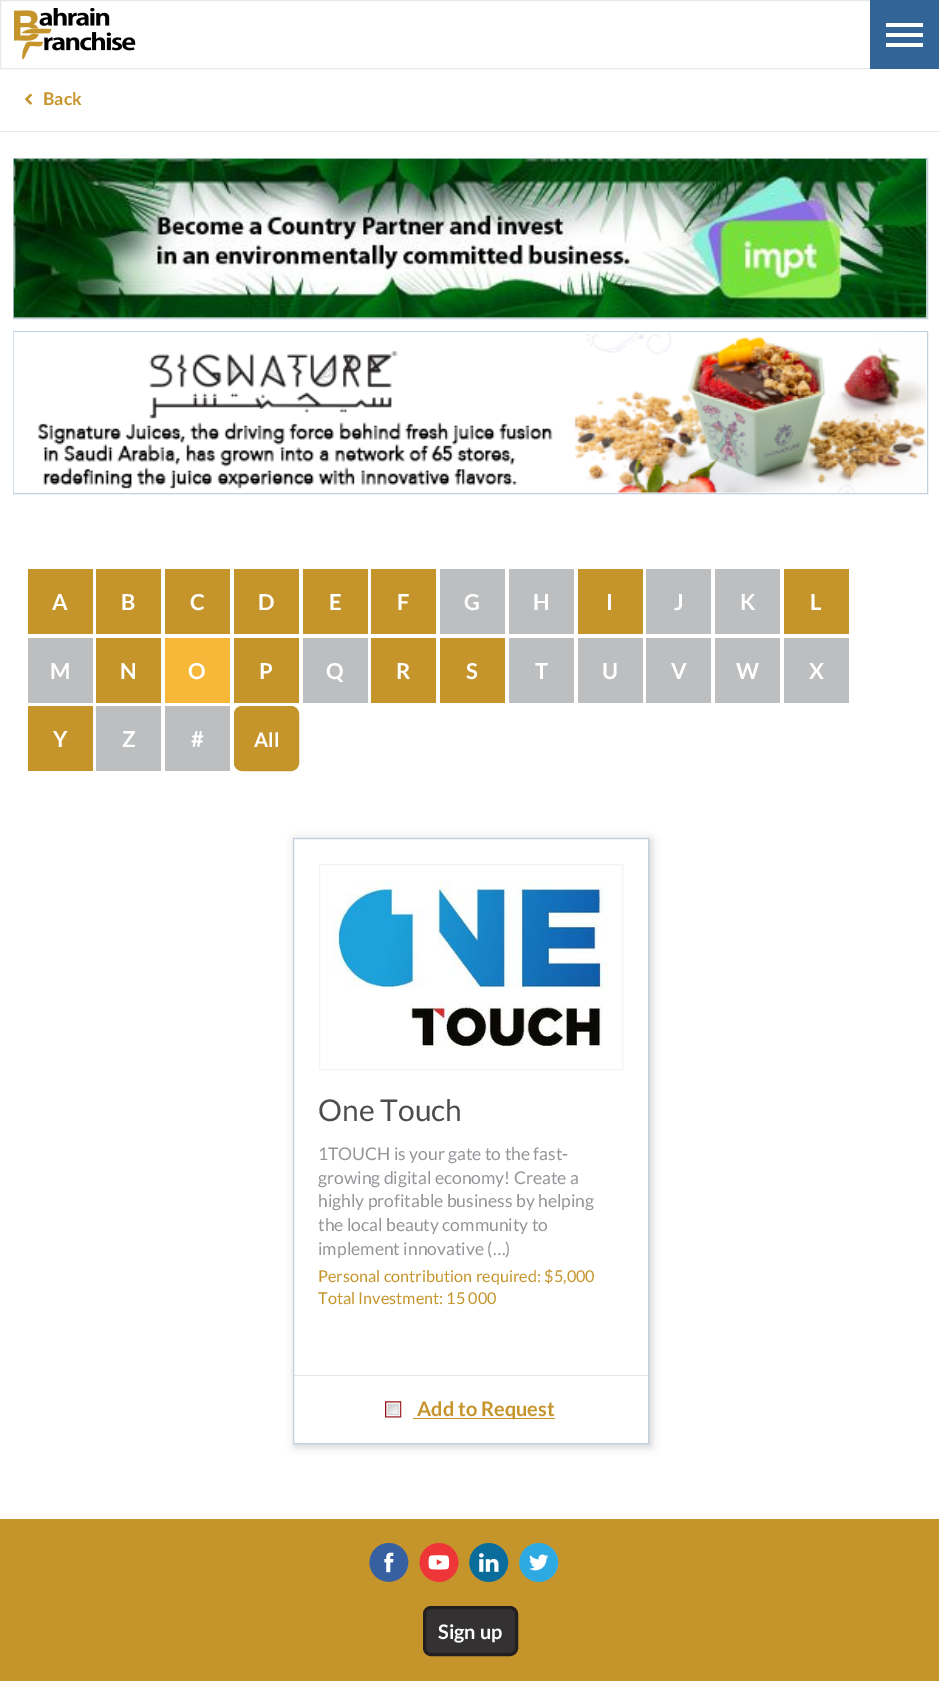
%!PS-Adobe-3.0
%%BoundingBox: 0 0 939 1681
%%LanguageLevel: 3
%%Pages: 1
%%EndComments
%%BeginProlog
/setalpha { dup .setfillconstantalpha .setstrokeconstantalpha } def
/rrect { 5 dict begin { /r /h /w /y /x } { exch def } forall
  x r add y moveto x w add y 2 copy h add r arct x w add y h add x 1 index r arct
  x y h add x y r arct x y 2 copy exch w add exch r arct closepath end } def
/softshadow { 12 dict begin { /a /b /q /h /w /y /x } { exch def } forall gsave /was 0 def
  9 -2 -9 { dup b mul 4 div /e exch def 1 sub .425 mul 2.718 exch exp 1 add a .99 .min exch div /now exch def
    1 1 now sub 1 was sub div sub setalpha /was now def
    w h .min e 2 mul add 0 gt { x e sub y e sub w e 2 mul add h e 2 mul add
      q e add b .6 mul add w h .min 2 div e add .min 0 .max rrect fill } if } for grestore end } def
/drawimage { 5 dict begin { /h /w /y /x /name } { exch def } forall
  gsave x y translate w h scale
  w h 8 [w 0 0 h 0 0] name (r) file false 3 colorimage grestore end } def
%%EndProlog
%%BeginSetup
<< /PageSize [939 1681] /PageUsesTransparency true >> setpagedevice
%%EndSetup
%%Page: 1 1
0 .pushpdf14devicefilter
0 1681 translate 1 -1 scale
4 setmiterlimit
1 setgray
0 0 939 1681 rectfill
0.902 0.906 0.91 setrgbcolor
0.5 0.5 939 68 rectstroke
(images/1.raw) 14 8 122 52 drawimage
0.2 0.392 0.596 setrgbcolor
870 0 69 69 rectfill
1 setgray
886 33 37 4 rectfill
886 23 37 4 rectfill
886 43 37 4 rectfill
0.902 0.906 0.91 setrgbcolor
0 131 939 1 rectfill
(images/2.raw) 24 93 8 12 drawimage
0.761 0.82 0.878 setrgbcolor
13.5 158.5 914 160 rectstroke
(images/3.raw) 13 158 914 160 drawimage
13.5 331.5 914 162 rectstroke
(images/4.raw) 13 332 914 161 drawimage
0.773 0.584 0.173 setrgbcolor
28 569 65 65 rectfill
96 569 65 65 rectfill
165 569 65 65 rectfill
234 569 65 65 rectfill
303 569 65 65 rectfill
371 569 65 65 rectfill
0.737 0.745 0.753 setrgbcolor
440 569 65 65 rectfill
509 569 65 65 rectfill
0.773 0.584 0.173 setrgbcolor
578 569 65 65 rectfill
0.737 0.745 0.753 setrgbcolor
646 569 65 65 rectfill
715 569 65 65 rectfill
0.773 0.584 0.173 setrgbcolor
784 569 65 65 rectfill
0.737 0.745 0.753 setrgbcolor
28 638 65 65 rectfill
0.773 0.584 0.173 setrgbcolor
96 638 65 65 rectfill
0.969 0.722 0.224 setrgbcolor
165 638 65 65 rectfill
0.773 0.584 0.173 setrgbcolor
234 638 65 65 rectfill
0.737 0.745 0.753 setrgbcolor
303 638 65 65 rectfill
0.773 0.584 0.173 setrgbcolor
371 638 65 65 rectfill
440 638 65 65 rectfill
0.737 0.745 0.753 setrgbcolor
509 638 65 65 rectfill
578 638 65 65 rectfill
646 638 65 65 rectfill
715 638 65 65 rectfill
784 638 65 65 rectfill
0.773 0.584 0.173 setrgbcolor
28 706 65 65 rectfill
0.737 0.745 0.753 setrgbcolor
96 706 65 65 rectfill
165 706 65 65 rectfill
0.773 0.584 0.173 setrgbcolor
235.5 707.5 62 62 6.5 rrect gsave fill grestore
3 setlinewidth
stroke
0 setgray
295 840 356 606 0 4.5 0.2 softshadow
1 setgray
newpath 293.5 838.5 moveto 648.5 838.5 lineto 648.5 1443.5 lineto 293.5 1443.5 lineto closepath gsave fill grestore
0.761 0.82 0.878 setrgbcolor
1 setlinewidth
stroke
0.953 0.953 0.957 setrgbcolor
319.5 864.5 303 205 rectstroke
(images/5.raw) 332 881 276 167 drawimage
0.902 setgray
294 1375 354 1 rectfill
(images/6.raw) 385 1401 17 17 drawimage
0.773 0.584 0.173 setrgbcolor
413 1418 142 1 rectfill
0 1519 939 162 rectfill
1 setgray
370 1544 38 37 18.5 rrect fill
(images/7.raw) 369 1543 40 39 drawimage
(images/8.raw) 419 1543 40 39 drawimage
470 1544 38 37 18.5 rrect fill
(images/9.raw) 469 1543 40 39 drawimage
520 1544 38 37 18.5 rrect fill
(images/10.raw) 519 1543 40 39 drawimage
0.2 0.192 0.196 setrgbcolor
424.5 1607.5 92 47 6.5 rrect gsave fill grestore
0.137 0.122 0.125 setrgbcolor
3 setlinewidth
stroke
/Lato-Bold [17.5 0 0 -17.5 0 0] selectfont
0.773 0.584 0.173 setrgbcolor
43 105 moveto (Back) show
/Lato-Bold [22 0 0 -22 0 0] selectfont
1 setgray
52 610 moveto (A) show
121 610 moveto (B) show
190 610 moveto (C) show
258 610 moveto (D) show
329 610 moveto (E) show
397 610 moveto (F) show
464 610 moveto (G) show
533 610 moveto (H) show
606 610 moveto (I) show
674 610 moveto (J) show
740 610 moveto (K) show
810 610 moveto (L) show
50 679 moveto (M) show
120 679 moveto (N) show
188 679 moveto (O) show
259 679 moveto (P) show
326 679 moveto (Q) show
396 679 moveto (R) show
466 679 moveto (S) show
535 679 moveto (T) show
602 679 moveto (U) show
671 679 moveto (V) show
736 679 moveto (W) show
809 679 moveto (X) show
53 747 moveto (Y) show
122 747 moveto (Z) show
191 747 moveto (#) show
/Lato-Bold [20 0 0 -20 0 0] selectfont
254 747 moveto (All) show
/Lato-Regular [30 0 0 -30 0 0] selectfont
0.302 0.302 0.31 setrgbcolor
318 1121 moveto (One Touch) show
/Lato-Regular [17.5 0 0 -17.5 0 0] selectfont
0.576 0.584 0.596 setrgbcolor
318 1160 moveto (1TOUCH is your gate to the fast-) show
318 1184 moveto (growing digital economy! Create a) show
318 1207 moveto (highly profitable business by helping) show
318 1231 moveto (the local beauty community to) show
318 1255 moveto (implement innovative \(…\)) show
/Lato-Regular [16.25 0 0 -16.25 0 0] selectfont
0.773 0.584 0.173 setrgbcolor
318 1282 moveto (Personal contribution required: $5,000) show
318 1304 moveto (Total Investment: 15 000) show
/Lato-Bold [20 0 0 -20 0 0] selectfont
417 1416 moveto (Add to Request) show
1 setgray
438 1639 moveto (Sign up) show
.poppdf14devicefilter showpage
%%EOF
